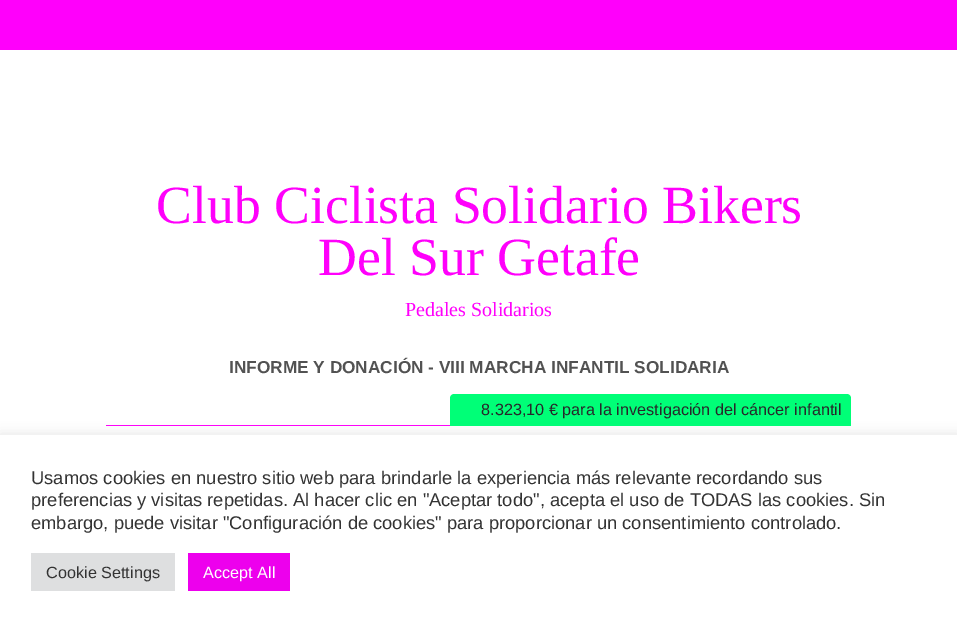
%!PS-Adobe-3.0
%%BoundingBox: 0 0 957 628
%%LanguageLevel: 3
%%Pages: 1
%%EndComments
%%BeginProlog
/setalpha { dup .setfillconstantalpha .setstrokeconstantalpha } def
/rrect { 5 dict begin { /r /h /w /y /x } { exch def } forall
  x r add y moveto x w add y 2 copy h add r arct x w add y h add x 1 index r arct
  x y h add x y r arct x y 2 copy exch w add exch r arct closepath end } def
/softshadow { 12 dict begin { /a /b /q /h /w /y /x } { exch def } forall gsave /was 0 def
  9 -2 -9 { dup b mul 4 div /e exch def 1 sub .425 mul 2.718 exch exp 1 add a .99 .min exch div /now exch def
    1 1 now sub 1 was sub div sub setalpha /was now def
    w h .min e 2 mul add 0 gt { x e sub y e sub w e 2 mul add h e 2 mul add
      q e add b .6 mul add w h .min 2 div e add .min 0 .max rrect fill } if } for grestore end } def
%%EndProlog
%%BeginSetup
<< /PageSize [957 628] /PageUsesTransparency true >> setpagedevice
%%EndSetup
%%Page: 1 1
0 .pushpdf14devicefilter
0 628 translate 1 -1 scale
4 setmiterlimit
1 0 0.984 setrgbcolor
0 0 957 628 rectfill
1 setgray
0 50 957 385 rectfill
1 0 0.984 setrgbcolor
106 425 344 1 rectfill
0 1 0.467 setrgbcolor
newpath 454 394 moveto 847 394 lineto 849 394 851 396 851 398 curveto 851 426 lineto 450 426 lineto 450 398 lineto 450 396 452 394 454 394 curveto closepath fill
0.675 0.671 0.671 setrgbcolor
0 434 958 194 0 6 0.3 softshadow
1 setgray
0 435 957 193 rectfill
0.871 0.875 0.878 setrgbcolor
31 553 144 38 rectfill
0.929 0 0.929 setrgbcolor
188 553 102 38 rectfill
/LiberationSerif-Regular [53.75 0 0 -53.75 0 0] selectfont
1 0 0.984 setrgbcolor
156 223 moveto (Club Ciclista Solidario Bikers) show
318 275 moveto (Del Sur Getafe) show
/LiberationSerif-Regular [20 0 0 -20 0 0] selectfont
405 316 moveto (Pedales Solidarios) show
/LiberationSans-Bold [17.25 0 0 -17.25 0 0] selectfont
0.322 setgray
229 373 moveto (INFORME Y DONACIÓN - VIII MARCHA INFANTIL SOLIDARIA) show
/LiberationSans-Regular [16.25 0 0 -16.25 0 0] selectfont
0.153 0.153 0.165 setrgbcolor
481 415 moveto (8.323,10 € para la investigación del cáncer infantil) show
/LiberationSans-Regular [18.35 0 0 -18.35 0 0] selectfont
0.2 setgray
31 484 moveto (Usamos cookies en nuestro sitio web para brindarle la experiencia más relevante recordando sus) show
31 506 moveto (preferencias y visitas repetidas. Al hacer clic en "Aceptar todo", acepta el uso de TODAS las cookies. Sin) show
31 529 moveto (embargo, puede visitar "Configuración de cookies" para proporcionar un consentimiento controlado.) show
/LiberationSans-Regular [16.25 0 0 -16.25 0 0] selectfont
46 578 moveto (Cookie Settings) show
1 setgray
203 578 moveto (Accept All) show
.poppdf14devicefilter showpage
%%EOF
